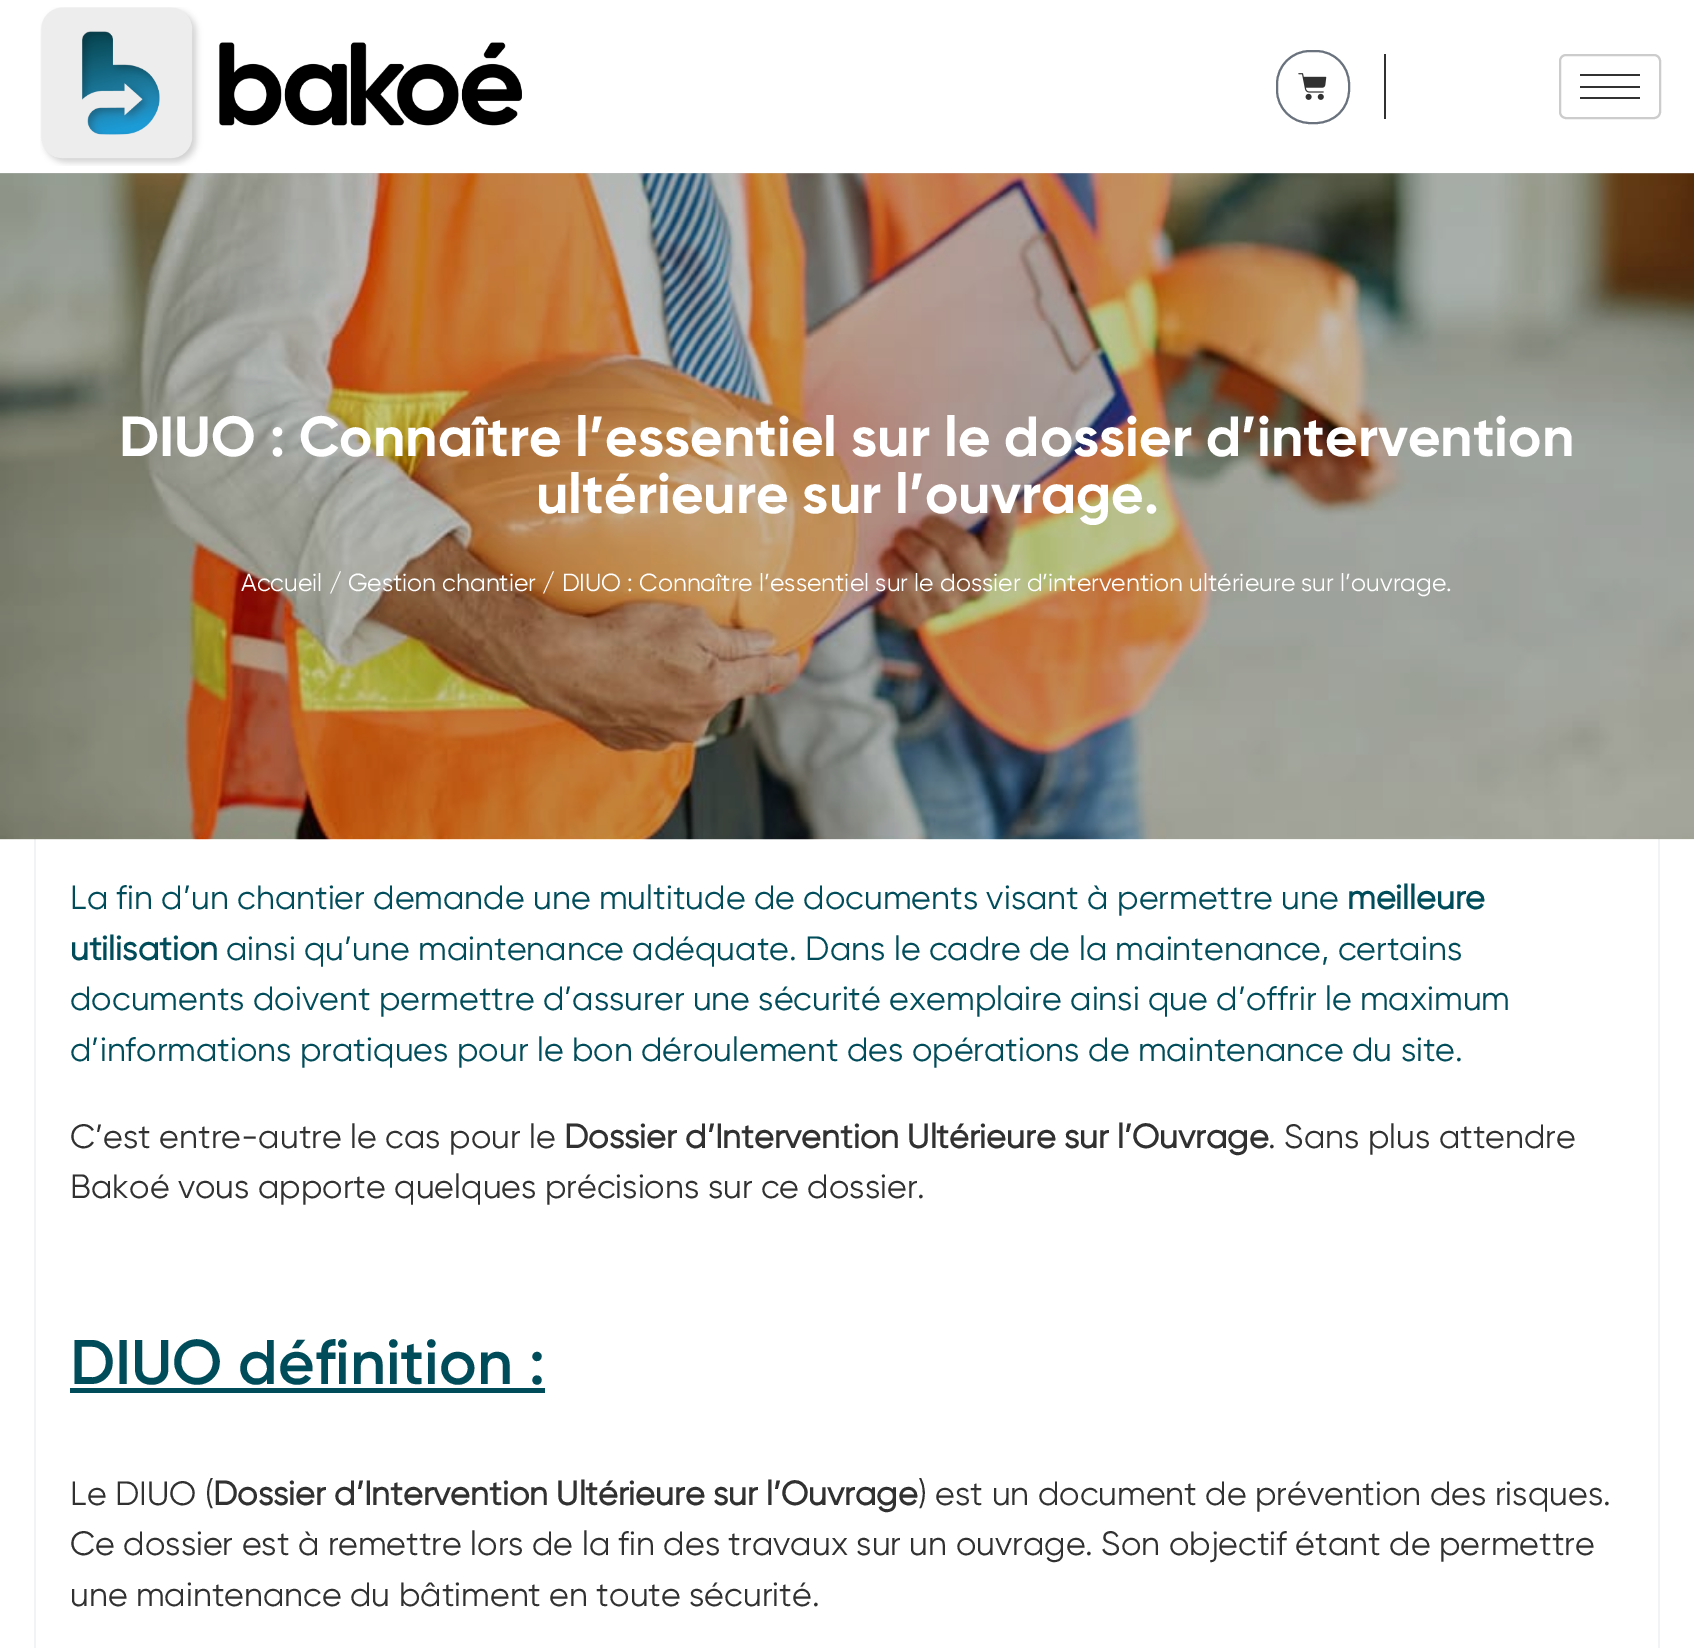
%!PS-Adobe-3.0
%%BoundingBox: 0 0 1694 1648
%%LanguageLevel: 3
%%Pages: 1
%%EndComments
%%BeginProlog
/setalpha { dup .setfillconstantalpha .setstrokeconstantalpha } def
/rrect { 5 dict begin { /r /h /w /y /x } { exch def } forall
  x r add y moveto x w add y 2 copy h add r arct x w add y h add x 1 index r arct
  x y h add x y r arct x y 2 copy exch w add exch r arct closepath end } def
/drawimage { 5 dict begin { /h /w /y /x /name } { exch def } forall
  gsave x y translate w h scale
  w h 8 [w 0 0 h 0 0] name (r) file false 3 colorimage grestore end } def
%%EndProlog
%%BeginSetup
<< /PageSize [1694 1648] /PageUsesTransparency true >> setpagedevice
%%EndSetup
%%Page: 1 1
0 .pushpdf14devicefilter
0 1648 translate 1 -1 scale
4 setmiterlimit
1 setgray
0 0 1694 1648 rectfill
(images/1.raw) 40 7 482 159 drawimage
0.412 0.447 0.49 setrgbcolor
2 setlinewidth
1277 51 72 72 33 rrect stroke
(images/2.raw) 1298 73 29 27 drawimage
0.192 setgray
1384 54 2 65 rectfill
0.8 setgray
1560 55 100 63 6 rrect stroke
0.192 setgray
1580 74 60 2 rectfill
1580 86 60 2 rectfill
1580 97 60 2 rectfill
(images/3.raw) 0 173 1694 667 drawimage
0.05 setalpha
0.004 0.086 0.251 setrgbcolor
1658 839 2 809 rectfill
34 839 2 809 rectfill
1 setalpha
0.004 0.298 0.353 setrgbcolor
70 1388 475 5 rectfill
/Gilroy-Bold [56.25 0 0 -56.25 0 0] selectfont
1 setgray
119 456 moveto (DIUO : Connaître l’essentiel sur le dossier d’intervention) show
536 513 moveto (ultérieure sur l’ouvrage.) show
/Gilroy-Regular [24.75 0 0 -24.75 0 0] selectfont
241 591 moveto (Accueil / Gestion chantier / DIUO : Connaître l’essentiel sur le dossier d’intervention ultérieure sur l’ouvrage.) show
/Gilroy-Regular [33.75 0 0 -33.75 0 0] selectfont
0.004 0.298 0.353 setrgbcolor
70 909 moveto (La fin d’un chantier demande une multitude de documents visant à permettre une) show
/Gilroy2-Bold [33.75 0 0 -33.75 0 0] selectfont
1347 909 moveto (meilleure) show
70 960 moveto (utilisation) show
/Gilroy-Regular [33.75 0 0 -33.75 0 0] selectfont
226 960 moveto (ainsi qu’une maintenance adéquate. Dans le cadre de la maintenance, certains) show
70 1010 moveto (documents doivent permettre d’assurer une sécurité exemplaire ainsi que d’offrir le maximum) show
70 1061 moveto (d’informations pratiques pour le bon déroulement des opérations de maintenance du site.) show
0.192 setgray
70 1148 moveto (C’est entre-autre le cas pour le) show
/Gilroy2-Bold [33.75 0 0 -33.75 0 0] selectfont
564 1148 moveto (Dossier d’Intervention Ultérieure sur l’Ouvrage) show
/Gilroy-Regular [33.75 0 0 -33.75 0 0] selectfont
1268 1148 moveto (. Sans plus attendre) show
70 1198 moveto (Bakoé vous apporte quelques précisions sur ce dossier.) show
/Gilroy-SemiBold [63 0 0 -63 0 0] selectfont
0.004 0.298 0.353 setrgbcolor
70 1384 moveto (DIUO définition :) show
/Gilroy-Regular [33.75 0 0 -33.75 0 0] selectfont
0.192 setgray
70 1505 moveto (Le DIUO \() show
/Gilroy2-Bold [33.75 0 0 -33.75 0 0] selectfont
213 1505 moveto (Dossier d’Intervention Ultérieure sur l’Ouvrage) show
/Gilroy-Regular [33.75 0 0 -33.75 0 0] selectfont
918 1505 moveto (\) est un document de prévention des risques.) show
70 1555 moveto (Ce dossier est à remettre lors de la fin des travaux sur un ouvrage. Son objectif étant de permettre) show
70 1606 moveto (une maintenance du bâtiment en toute sécurité.) show
.poppdf14devicefilter showpage
%%EOF
